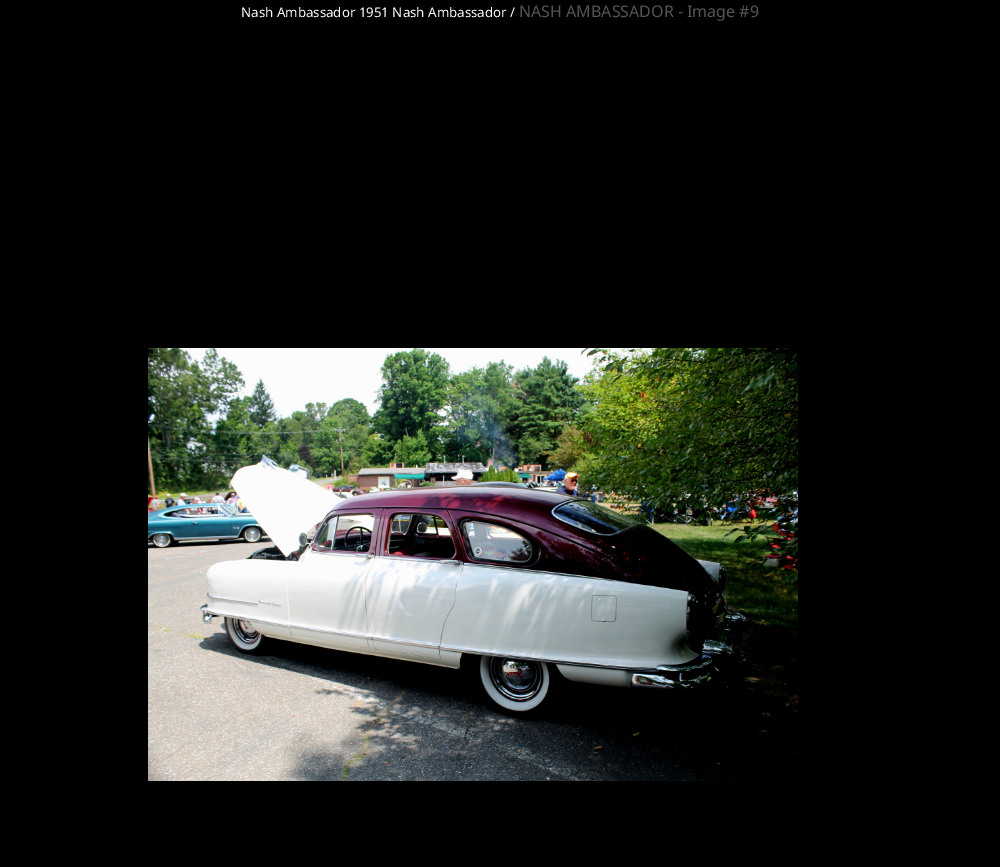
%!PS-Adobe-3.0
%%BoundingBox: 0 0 1000 867
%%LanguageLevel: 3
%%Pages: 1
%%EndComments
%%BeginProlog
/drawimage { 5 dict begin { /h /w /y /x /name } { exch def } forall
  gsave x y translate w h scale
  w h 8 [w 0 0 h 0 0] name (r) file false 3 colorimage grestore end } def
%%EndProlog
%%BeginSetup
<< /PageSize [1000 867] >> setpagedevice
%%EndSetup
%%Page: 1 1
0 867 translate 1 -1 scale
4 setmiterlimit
0 setgray
0 0 1000 867 rectfill
(images/1.raw) 148 348 650 433 drawimage
/NotoSans-Regular [13.3 0 0 -13.3 0 0] selectfont
1 setgray
241 17 moveto (Nash Ambassador 1951 Nash Ambassador /) show
/NotoSans-Regular [16 0 0 -16 0 0] selectfont
0.333 setgray
519 17 moveto (NASH AMBASSADOR - Image #9) show
showpage
%%EOF
